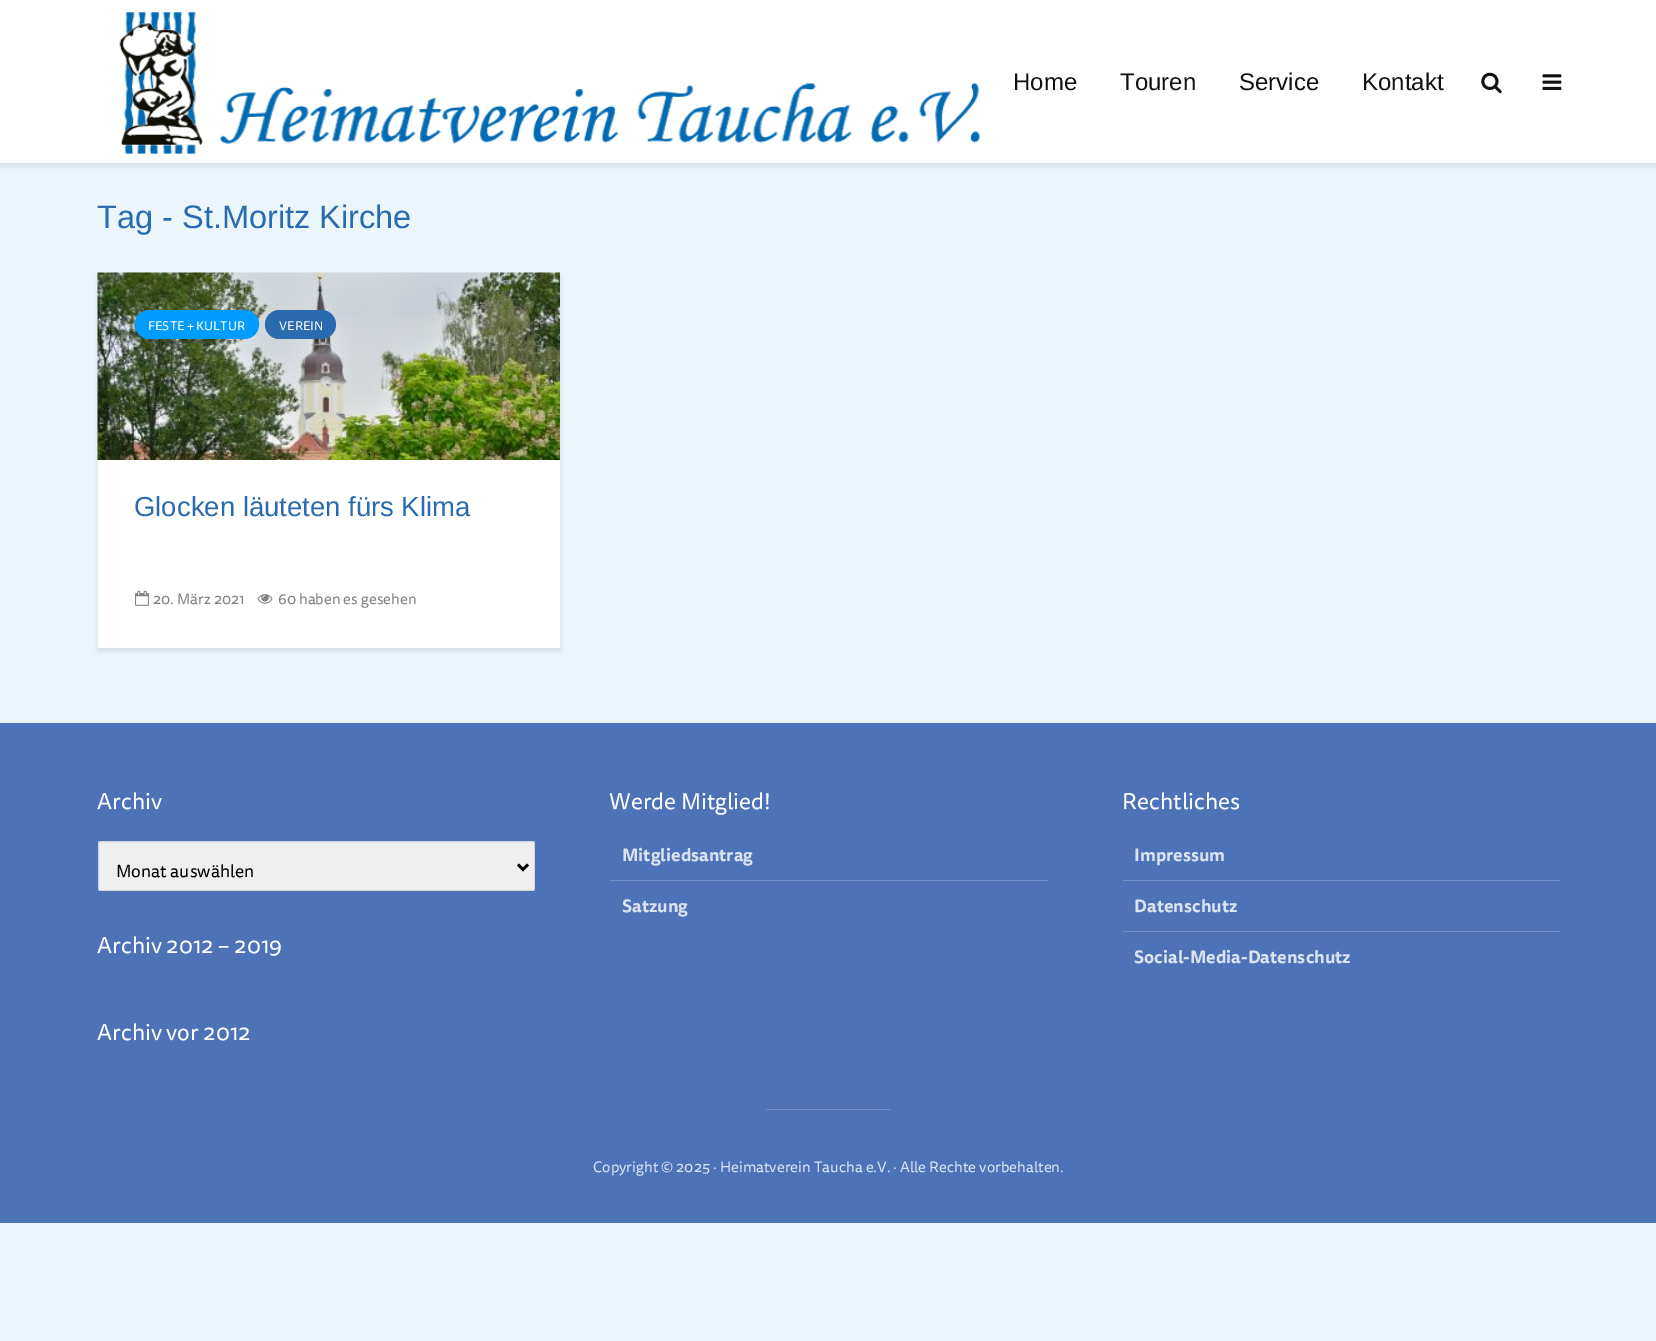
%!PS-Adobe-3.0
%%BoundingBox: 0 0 1656 1341
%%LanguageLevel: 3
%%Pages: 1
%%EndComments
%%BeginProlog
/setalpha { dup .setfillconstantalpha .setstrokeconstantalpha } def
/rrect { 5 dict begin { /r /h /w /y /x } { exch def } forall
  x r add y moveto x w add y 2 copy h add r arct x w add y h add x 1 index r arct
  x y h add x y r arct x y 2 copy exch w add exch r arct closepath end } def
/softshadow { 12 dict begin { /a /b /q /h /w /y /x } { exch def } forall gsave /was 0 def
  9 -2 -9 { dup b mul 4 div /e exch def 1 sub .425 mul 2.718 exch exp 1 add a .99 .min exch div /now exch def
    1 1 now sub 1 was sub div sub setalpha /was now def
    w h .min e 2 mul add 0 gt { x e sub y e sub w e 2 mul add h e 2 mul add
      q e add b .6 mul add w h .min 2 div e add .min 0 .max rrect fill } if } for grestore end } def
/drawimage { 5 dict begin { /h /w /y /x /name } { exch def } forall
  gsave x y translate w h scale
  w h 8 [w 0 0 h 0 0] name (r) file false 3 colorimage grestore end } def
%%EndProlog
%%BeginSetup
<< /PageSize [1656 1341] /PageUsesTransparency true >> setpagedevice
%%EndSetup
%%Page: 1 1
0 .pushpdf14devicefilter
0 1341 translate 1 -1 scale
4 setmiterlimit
0.918 0.961 0.988 setrgbcolor
0 0 1656 1341 rectfill
0 0.004 0.004 setrgbcolor
0 4 1656 162 0 3 0.1 softshadow
1 setgray
0 0 1656 163 rectfill
(images/1.raw) 119 12 861 142 drawimage
(images/2.raw) 1481 72 21 22 drawimage
(images/3.raw) 1542 74 20 16 drawimage
0 0.004 0.004 setrgbcolor
98 276 462 375 0 3 0.1 softshadow
1 setgray
98 460 462 188 rectfill
(images/4.raw) 97 272 463 188 drawimage
0 0.612 1 setrgbcolor
135 310 124 29 14.5 rrect fill
0.165 0.416 0.686 setrgbcolor
265 310 71 29 14.5 rrect fill
(images/5.raw) 135 590 14 16 drawimage
(images/6.raw) 257 594 16 10 drawimage
0.302 0.447 0.722 setrgbcolor
0 723 1656 500 rectfill
0.937 setgray
98 841 437 50 2.5 rrect fill
0.2 setalpha
0.369 setgray
98.5 841.5 436 49 2 rrect stroke
1 setalpha
0 setgray
2.5 setlinewidth
newpath 518 864.5 moveto 523 869.5 lineto 528 864.5 lineto stroke
0.443 0.557 0.776 setrgbcolor
610 880 438 1 rectfill
1123 880 437 1 rectfill
1123 931 437 1 rectfill
766 1109 125 1 rectfill
/LiberationSans-Regular [24 0 0 -24 0 0] selectfont
0.067 setgray
1013 90 moveto (Home) show
1120 90 moveto (Touren) show
1239 90 moveto (Service) show
1362 90 moveto (Kontakt) show
/LiberationSans-Regular [32.5 0 0 -32.5 0 0] selectfont
0.165 0.416 0.686 setrgbcolor
97 228 moveto (Tag - St.Moritz Kirche) show
/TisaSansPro-Regular [12.5 0 0 -12.5 0 0] selectfont
1 setgray
148 330 moveto (FESTE + KULTUR) show
279 330 moveto (VEREIN) show
/LiberationSans-Regular [27.5 0 0 -27.5 0 0] selectfont
0.165 0.416 0.686 setrgbcolor
134 516 moveto (Glocken läuteten fürs Klima) show
/TisaSansPro-Regular [15 0 0 -15 0 0] selectfont
0.506 setgray
153 604 moveto (20. März 2021) show
278 604 moveto (60 haben es gesehen) show
/TisaSansPro-Regular [22.75 0 0 -22.75 0 0] selectfont
1 setgray
97 809 moveto (Archiv) show
/TisaSansPro-Regular [17.5 0 0 -17.5 0 0] selectfont
0 setgray
116 877 moveto (Monat auswählen) show
/TisaSansPro-Regular [22.75 0 0 -22.75 0 0] selectfont
1 setgray
97 953 moveto (Archiv 2012 – 2019) show
97 1040 moveto (Archiv vor 2012) show
609 809 moveto (Werde Mitglied!) show
/TisaSansPro-Bold [17.5 0 0 -17.5 0 0] selectfont
0.859 0.89 0.945 setrgbcolor
622 861 moveto (Mitgliedsantrag) show
622 912 moveto (Satzung) show
/TisaSansPro-Regular [22.75 0 0 -22.75 0 0] selectfont
1 setgray
1122 809 moveto (Rechtliches) show
/TisaSansPro-Bold [17.5 0 0 -17.5 0 0] selectfont
0.859 0.89 0.945 setrgbcolor
1134 861 moveto (Impressum) show
1134 912 moveto (Datenschutz) show
1134 963 moveto (Social-Media-Datenschutz) show
/TisaSansPro-Regular [15 0 0 -15 0 0] selectfont
593 1172 moveto (Copyright © 2025 · Heimatverein Taucha e.V. · Alle Rechte vorbehalten.) show
.poppdf14devicefilter showpage
%%EOF
